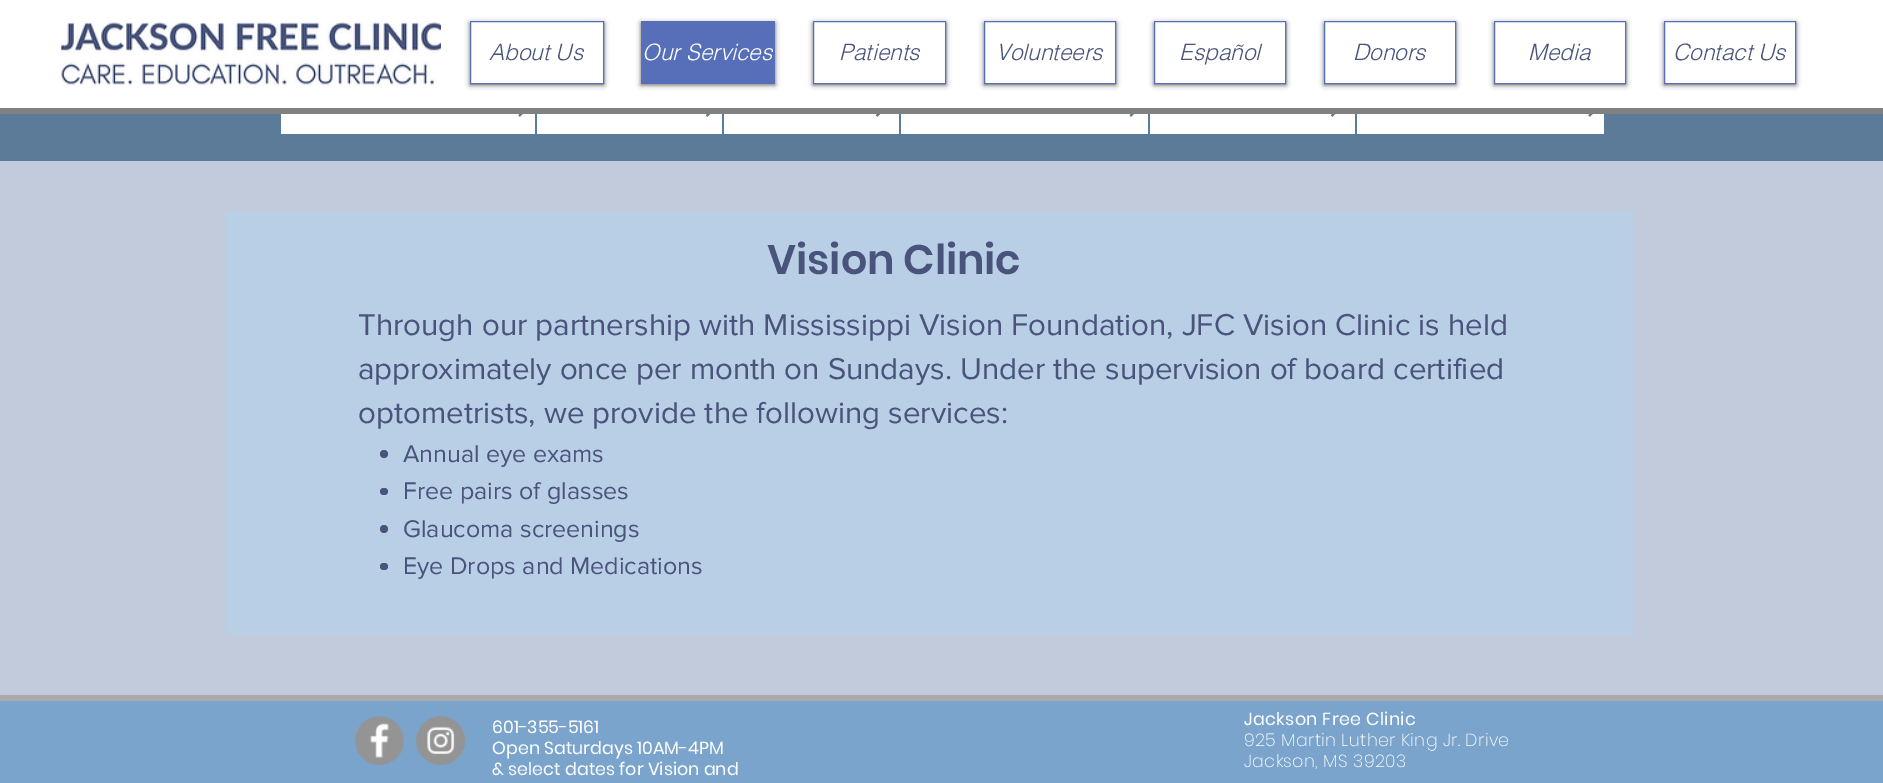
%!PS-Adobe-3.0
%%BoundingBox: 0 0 1883 783
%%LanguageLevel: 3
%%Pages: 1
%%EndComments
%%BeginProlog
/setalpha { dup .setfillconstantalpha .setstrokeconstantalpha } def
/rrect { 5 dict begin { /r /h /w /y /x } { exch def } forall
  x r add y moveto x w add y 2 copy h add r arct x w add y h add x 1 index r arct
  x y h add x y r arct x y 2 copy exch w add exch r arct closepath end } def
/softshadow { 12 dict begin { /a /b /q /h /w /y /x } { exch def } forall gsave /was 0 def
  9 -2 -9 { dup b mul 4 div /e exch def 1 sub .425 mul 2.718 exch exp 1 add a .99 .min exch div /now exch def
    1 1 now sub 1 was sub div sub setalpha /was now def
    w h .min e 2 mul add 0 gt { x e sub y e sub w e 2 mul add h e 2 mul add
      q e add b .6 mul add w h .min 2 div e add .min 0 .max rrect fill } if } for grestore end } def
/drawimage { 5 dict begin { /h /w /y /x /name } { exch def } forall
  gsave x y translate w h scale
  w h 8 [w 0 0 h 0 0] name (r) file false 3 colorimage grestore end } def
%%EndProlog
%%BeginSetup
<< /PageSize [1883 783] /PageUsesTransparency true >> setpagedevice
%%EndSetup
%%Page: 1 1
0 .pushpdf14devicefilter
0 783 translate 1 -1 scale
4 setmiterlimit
0.357 0.482 0.6 setrgbcolor
0 0 1883 783 rectfill
0.502 setgray
0 108 1883 6 rectfill
1 setgray
0 0 1883 108 rectfill
(images/1.raw) 60 22 381 64 drawimage
gsave
newpath 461 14 moveto 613 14 lineto 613 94 lineto 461 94 lineto closepath 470 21 moveto 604 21 lineto 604 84 lineto 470 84 lineto closepath eoclip newpath
0 setgray
470 23 134 62 0 2.5 0.6 softshadow
grestore
0.337 0.435 0.722 setrgbcolor
470.5 21.5 133 62 rectstroke
0 setgray
641 23 134 62 0 2.5 0.6 softshadow
0.337 0.435 0.722 setrgbcolor
641 21 134 63 rectfill
gsave
newpath 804 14 moveto 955 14 lineto 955 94 lineto 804 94 lineto closepath 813 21 moveto 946 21 lineto 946 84 lineto 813 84 lineto closepath eoclip newpath
0 setgray
813 23 133 62 0 2.5 0.6 softshadow
grestore
813.5 21.5 132 62 rectstroke
gsave
newpath 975 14 moveto 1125 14 lineto 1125 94 lineto 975 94 lineto closepath 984 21 moveto 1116 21 lineto 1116 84 lineto 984 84 lineto closepath eoclip newpath
0 setgray
984 23 132 62 0 2.5 0.6 softshadow
grestore
984.5 21.5 131 62 rectstroke
gsave
newpath 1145 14 moveto 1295 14 lineto 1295 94 lineto 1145 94 lineto closepath 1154 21 moveto 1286 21 lineto 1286 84 lineto 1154 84 lineto closepath eoclip newpath
0 setgray
1154 23 132 62 0 2.5 0.6 softshadow
grestore
1154.5 21.5 131 62 rectstroke
gsave
newpath 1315 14 moveto 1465 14 lineto 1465 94 lineto 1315 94 lineto closepath 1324 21 moveto 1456 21 lineto 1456 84 lineto 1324 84 lineto closepath eoclip newpath
0 setgray
1324 23 132 62 0 2.5 0.6 softshadow
grestore
1324.5 21.5 131 62 rectstroke
gsave
newpath 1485 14 moveto 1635 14 lineto 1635 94 lineto 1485 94 lineto closepath 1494 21 moveto 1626 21 lineto 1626 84 lineto 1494 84 lineto closepath eoclip newpath
0 setgray
1494 23 132 62 0 2.5 0.6 softshadow
grestore
1494.5 21.5 131 62 rectstroke
gsave
newpath 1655 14 moveto 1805 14 lineto 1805 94 lineto 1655 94 lineto closepath 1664 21 moveto 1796 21 lineto 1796 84 lineto 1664 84 lineto closepath eoclip newpath
0 setgray
1664 23 132 62 0 2.5 0.6 softshadow
grestore
1664.5 21.5 131 62 rectstroke
1 setgray
281 114 254 20 rectfill
(images/2.raw) 518 114 5 3 drawimage
537 114 185 20 rectfill
(images/3.raw) 705 114 6 3 drawimage
724 114 175 20 rectfill
(images/3.raw) 875 114 6 3 drawimage
901 114 247 20 rectfill
(images/4.raw) 1129 114 5 3 drawimage
1150 114 205 20 rectfill
(images/3.raw) 1330 114 6 3 drawimage
1357 114 247 20 rectfill
(images/2.raw) 1588 114 5 3 drawimage
0.757 0.796 0.863 setrgbcolor
0 161 1883 534 rectfill
0.722 0.812 0.902 setrgbcolor
226 211 1407 423 rectfill
0.286 0.325 0.486 setrgbcolor
newpath 384 454 4 0 360 arc closepath fill
380 488 8 7 3.5 rrect fill
newpath 384 529 4 0 360 arc closepath fill
380 563 8 7 3.5 rrect fill
0.482 0.643 0.8 setrgbcolor
0 701 1883 82 rectfill
0.667 setgray
0 695 1883 6 rectfill
1 setgray
newpath 401 740 moveto 401 768 359 768 359 740 curveto 359 712 401 712 401 740 curveto closepath fill
(images/5.raw) 355 716 49 49 drawimage
newpath 462 740 moveto 462 768 420 768 420 740 curveto 420 712 462 712 462 740 curveto closepath fill
(images/6.raw) 416 716 49 49 drawimage
/helvetica-LightItalic [22.5 0 0 -22.5 0 0] selectfont
0.286 0.325 0.486 setrgbcolor
489 60 moveto (About Us) show
1 setgray
642 60 moveto (Our Services) show
0.286 0.325 0.486 setrgbcolor
839 60 moveto (Patients) show
996 60 moveto (Volunteers) show
1179 60 moveto (Español) show
1353 60 moveto (Donors) show
1528 60 moveto (Media) show
1673 60 moveto (Contact Us) show
/Poppins-SemiBold [41.25 0 0 -41.25 0 0] selectfont
767 274 moveto (Vision Clinic) show
/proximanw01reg-Regular [31.25 0 0 -31.25 0 0] selectfont
358 335 moveto (Through our partnership with Mississippi Vision Foundation, JFC Vision Clinic is held) show
358 379 moveto (approximately once per month on Sundays. Under the supervision of board certified) show
358 423 moveto (optometrists, we provide the following services:) show
/proximanw01reg-Regular [25 0 0 -25 0 0] selectfont
403 462 moveto (Annual eye exams) show
403 499 moveto (Free pairs of glasses) show
403 537 moveto (Glaucoma screenings) show
403 574 moveto (Eye Drops and Medications) show
/Poppins-Regular [17.5 0 0 -17.5 0 0] selectfont
1 setgray
492 733 moveto (601-355-5161) show
492 754 moveto (Open Saturdays 10AM-4PM) show
492 775 moveto (& select dates for Vision and) show
1244 725 moveto 0.35 0 (Jackson Free Clinic) ashow
/Poppins-ExtraLight [17.5 0 0 -17.5 0 0] selectfont
1244 746 moveto 0.35 0 (925 Martin Luther King Jr. Drive) ashow
1244 767 moveto 0.35 0 (Jackson, MS 39203) ashow
.poppdf14devicefilter showpage
%%EOF
